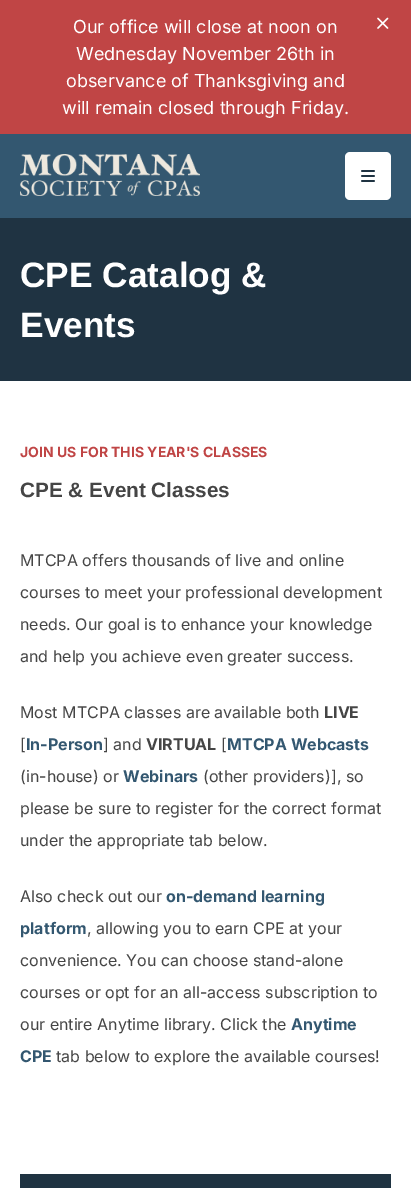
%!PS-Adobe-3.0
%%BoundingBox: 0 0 411 1188
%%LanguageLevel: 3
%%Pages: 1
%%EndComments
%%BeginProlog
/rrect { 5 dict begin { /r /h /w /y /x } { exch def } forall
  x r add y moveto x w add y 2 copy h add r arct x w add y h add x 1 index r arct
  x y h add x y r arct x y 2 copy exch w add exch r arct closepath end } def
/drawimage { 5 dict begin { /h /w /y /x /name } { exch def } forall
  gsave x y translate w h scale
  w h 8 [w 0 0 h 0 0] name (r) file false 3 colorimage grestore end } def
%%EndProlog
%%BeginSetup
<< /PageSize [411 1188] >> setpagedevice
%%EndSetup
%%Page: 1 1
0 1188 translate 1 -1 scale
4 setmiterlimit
1 setgray
0 0 411 1188 rectfill
0.753 0.271 0.271 setrgbcolor
0 0 411 134 rectfill
(images/1.raw) 377 17 12 12 drawimage
0.2 0.341 0.439 setrgbcolor
0 134 411 84 rectfill
(images/2.raw) 20 154 180 42 drawimage
1 setgray
345 152 46 48 5 rrect fill
(images/3.raw) 361 170 14 12 drawimage
0.122 0.2 0.259 setrgbcolor
0 218 411 163 rectfill
20 1174 371 14 rectfill
/Inter-Regular [18 0 0 -18 0 0] selectfont
1 setgray
73 33 moveto (Our office will close at noon on) show
76 60 moveto (Wednesday November 26th in) show
66 87 moveto (observance of Thanksgiving and) show
62 114 moveto (will remain closed through Friday.) show
/LiberationSans-Bold [35.25 0 0 -35.25 0 0] selectfont
20 287 moveto (CPE Catalog &) show
20 337 moveto (Events) show
/Inter-Bold [14 0 0 -14 0 0] selectfont
0.753 0.271 0.271 setrgbcolor
20 457 moveto (JOIN US FOR THIS YEAR'S CLASSES) show
/LiberationSans-Bold [20.75 0 0 -20.75 0 0] selectfont
0.271 setgray
20 497 moveto (CPE & Event Classes) show
/Inter-Regular [16 0 0 -16 0 0] selectfont
20 566 moveto (MTCPA offers thousands of live and online) show
20 598 moveto (courses to meet your professional development) show
20 630 moveto (needs. Our goal is to enhance your knowledge) show
20 662 moveto (and help you achieve even greater success.) show
20 718 moveto (Most MTCPA classes are available both) show
/Inter-Bold [16 0 0 -16 0 0] selectfont
324 718 moveto (LIVE) show
/Inter-Regular [16 0 0 -16 0 0] selectfont
20 750 moveto ([) show
/Inter-Bold [16 0 0 -16 0 0] selectfont
0.2 0.341 0.439 setrgbcolor
26 750 moveto (In-Person) show
/Inter-Regular [16 0 0 -16 0 0] selectfont
0.271 setgray
103 750 moveto (] and) show
/Inter-Bold [16 0 0 -16 0 0] selectfont
146 750 moveto (VIRTUAL) show
/Inter-Regular [16 0 0 -16 0 0] selectfont
221 750 moveto ([) show
/Inter-Bold [16 0 0 -16 0 0] selectfont
0.2 0.341 0.439 setrgbcolor
227 750 moveto (MTCPA Webcasts) show
/Inter-Regular [16 0 0 -16 0 0] selectfont
0.271 setgray
20 782 moveto (\(in-house\) or) show
/Inter-Bold [16 0 0 -16 0 0] selectfont
0.2 0.341 0.439 setrgbcolor
123 782 moveto (Webinars) show
/Inter-Regular [16 0 0 -16 0 0] selectfont
0.271 setgray
203 782 moveto (\(other providers\)], so) show
20 814 moveto (please be sure to register for the correct format) show
20 846 moveto (under the appropriate tab below.) show
20 902 moveto (Also check out our) show
/Inter-Bold [16 0 0 -16 0 0] selectfont
0.2 0.341 0.439 setrgbcolor
166 902 moveto (on-demand learning) show
20 934 moveto (platform) show
/Inter-Regular [16 0 0 -16 0 0] selectfont
0.271 setgray
87 934 moveto (, allowing you to earn CPE at your) show
20 966 moveto (convenience. You can choose stand-alone) show
20 998 moveto (courses or opt for an all-access subscription to) show
20 1030 moveto (our entire Anytime library. Click the) show
/Inter-Bold [16 0 0 -16 0 0] selectfont
0.2 0.341 0.439 setrgbcolor
291 1030 moveto (Anytime) show
20 1062 moveto (CPE) show
/Inter-Regular [16 0 0 -16 0 0] selectfont
0.271 setgray
56 1062 moveto (tab below to explore the available courses!) show
showpage
%%EOF
